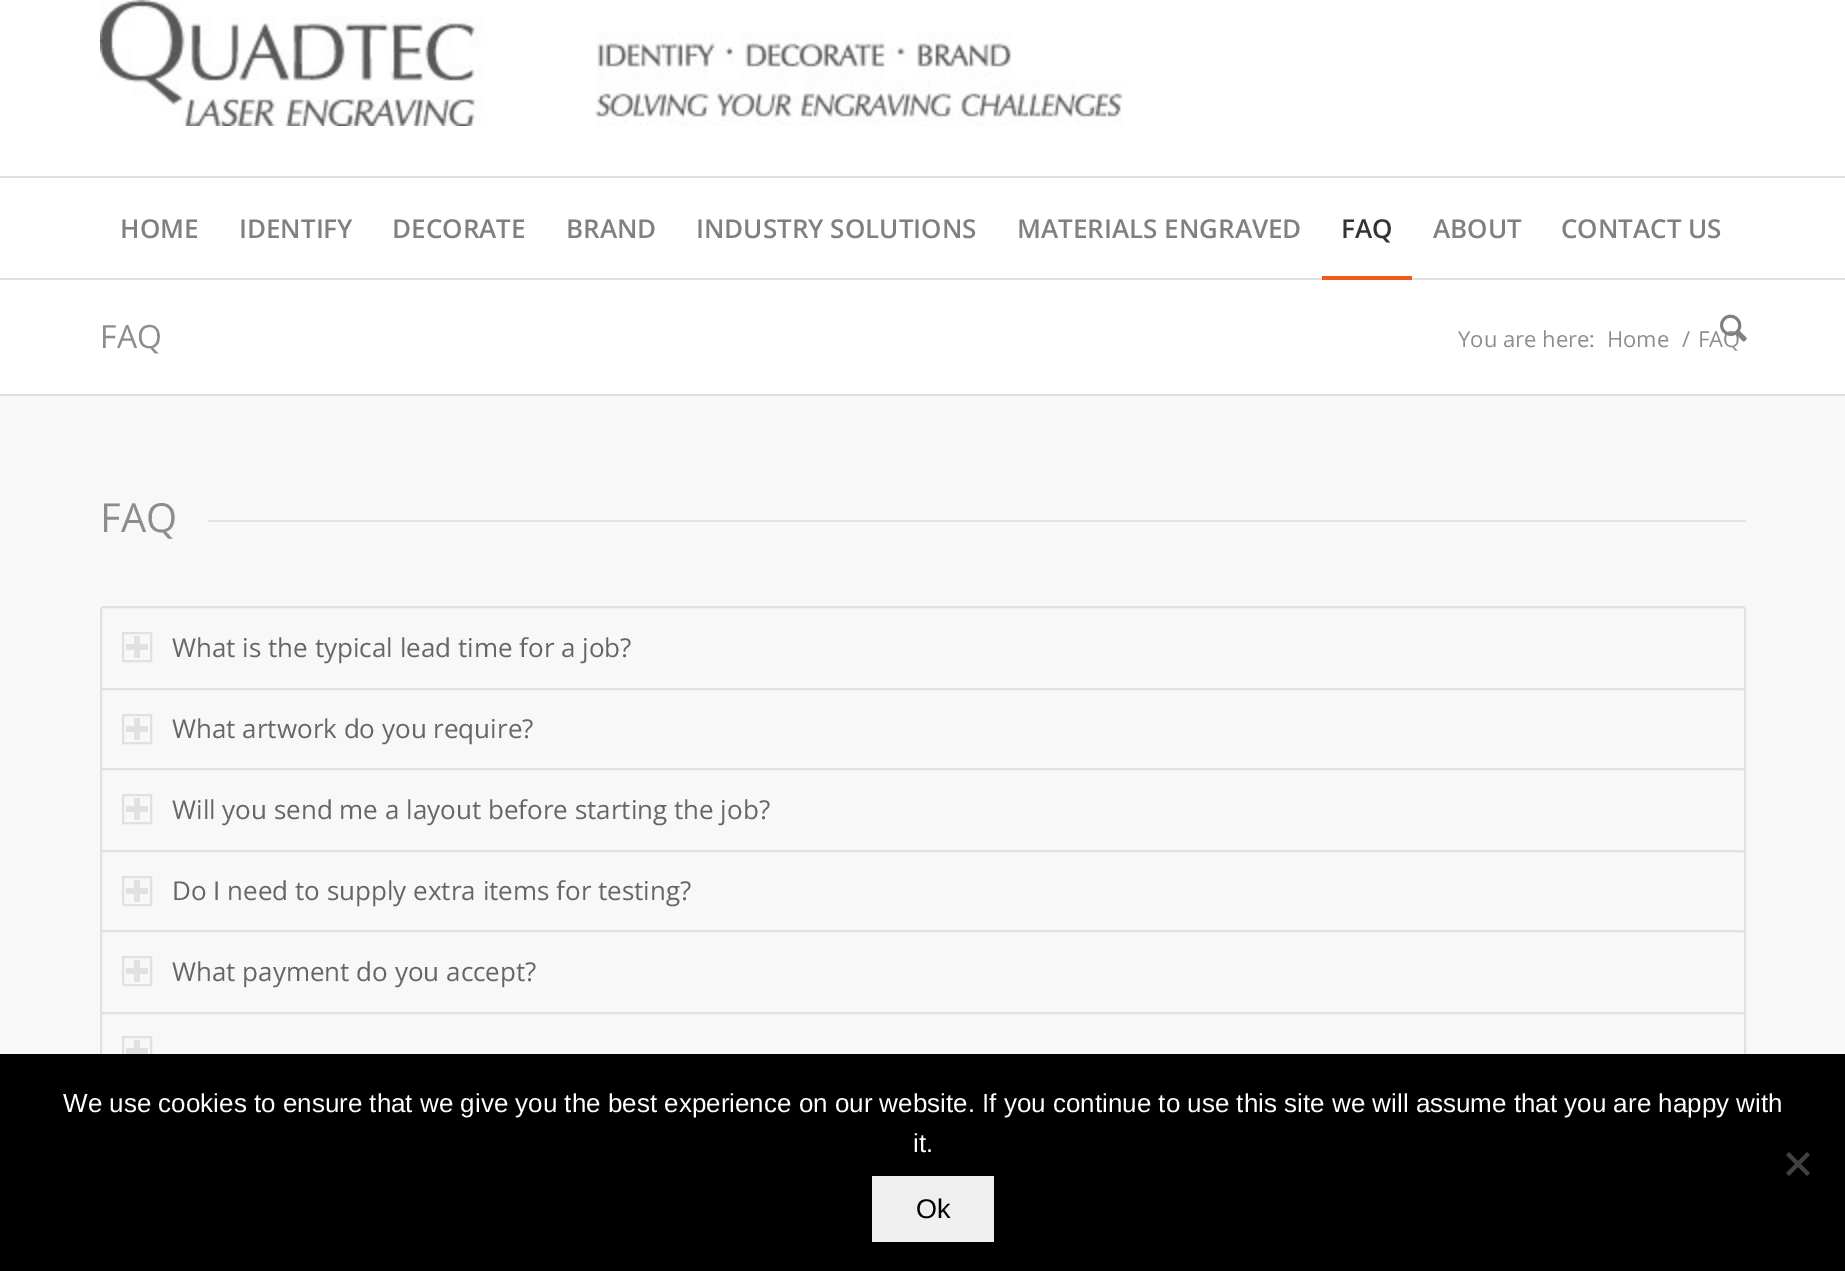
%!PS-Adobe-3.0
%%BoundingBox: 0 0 1845 1271
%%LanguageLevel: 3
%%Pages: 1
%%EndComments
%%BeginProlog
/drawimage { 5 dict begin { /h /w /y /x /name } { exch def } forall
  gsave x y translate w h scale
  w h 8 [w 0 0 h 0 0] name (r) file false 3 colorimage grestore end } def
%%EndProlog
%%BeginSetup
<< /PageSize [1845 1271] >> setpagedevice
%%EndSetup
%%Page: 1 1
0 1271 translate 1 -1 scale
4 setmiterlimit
1 setgray
0 0 1845 1271 rectfill
0.882 setgray
0 278 1845 2 rectfill
(images/1.raw) 100 0 1022 126 drawimage
0 176 1845 2 rectfill
0.941 0.353 0.102 setrgbcolor
1322 276 90 4 rectfill
0.973 setgray
0 396 1845 658 rectfill
0.882 setgray
0 394 1845 2 rectfill
0.89 setgray
208 520 1538 2 rectfill
0.882 setgray
2 setlinewidth
newpath 104 607 moveto 1742 607 lineto 1743.5 607 1745 608.5 1745 610 curveto 1745 689 lineto 101 689 lineto 101 610 lineto 101 608.5 102.5 607 104 607 curveto closepath stroke
123 633 28 28 rectstroke
134 636 6 22 rectfill
126 644 22 6 rectfill
0.973 setgray
newpath 104 689 moveto 1742 689 lineto 1743.5 689 1745 690.5 1745 692 curveto 1745 769 lineto 101 769 lineto 101 692 lineto 101 690.5 102.5 689 104 689 curveto closepath gsave fill grestore
0.882 setgray
stroke
123 715 28 28 rectstroke
134 718 6 22 rectfill
126 726 22 6 rectfill
0.973 setgray
newpath 104 769 moveto 1742 769 lineto 1743.5 769 1745 770.5 1745 772 curveto 1745 851 lineto 101 851 lineto 101 772 lineto 101 770.5 102.5 769 104 769 curveto closepath gsave fill grestore
0.882 setgray
stroke
123 795 28 28 rectstroke
134 798 6 22 rectfill
126 806 22 6 rectfill
0.973 setgray
newpath 104 851 moveto 1742 851 lineto 1743.5 851 1745 852.5 1745 854 curveto 1745 931 lineto 101 931 lineto 101 854 lineto 101 852.5 102.5 851 104 851 curveto closepath gsave fill grestore
0.882 setgray
stroke
123 877 28 28 rectstroke
134 880 6 22 rectfill
126 888 22 6 rectfill
0.973 setgray
newpath 104 931 moveto 1742 931 lineto 1743.5 931 1745 932.5 1745 934 curveto 1745 1013 lineto 101 1013 lineto 101 934 lineto 101 932.5 102.5 931 104 931 curveto closepath gsave fill grestore
0.882 setgray
stroke
123 957 28 28 rectstroke
134 960 6 22 rectfill
126 968 22 6 rectfill
0.973 setgray
newpath 104 1013 moveto 1742 1013 lineto 1743.5 1013 1745 1014.5 1745 1016 curveto 1745 1093 lineto 101 1093 lineto 101 1016 lineto 101 1014.5 102.5 1013 104 1013 curveto closepath gsave fill grestore
0.882 setgray
stroke
123 1037 28 28 rectstroke
134 1040 6 8 rectfill
126 1048 22 6 rectfill
0 setgray
0 1054 1845 217 rectfill
0.251 setgray
newpath 1807 1152 moveto 1810 1155 lineto 1789 1176 lineto 1786 1173 lineto closepath fill
newpath 1786 1155 moveto 1789 1152 lineto 1810 1173 lineto 1807 1176 lineto closepath fill
0.937 setgray
872 1176 122 66 rectfill
/OpenSans-SemiBold [26 0 0 -26 0 0] selectfont
0.502 setgray
120 238 moveto (HOME) show
239 238 moveto (IDENTIFY) show
392 238 moveto (DECORATE) show
566 238 moveto (BRAND) show
696 238 moveto (INDUSTRY SOLUTIONS) show
1017 238 moveto (MATERIALS ENGRAVED) show
0.2 setgray
1341 238 moveto (FAQ) show
0.502 setgray
1433 238 moveto (ABOUT) show
1561 238 moveto (CONTACT US) show
/OpenSans-Regular [32 0 0 -32 0 0] selectfont
0.553 setgray
100 348 moveto (FAQ) show
/OpenSans-Regular [22 0 0 -22 0 0] selectfont
1458 347 moveto (You are here:) show
1607 347 moveto (Home) show
1682 347 moveto (/) show
1698 347 moveto (FAQ) show
(images/2.raw) 1720 314 27 28 drawimage
/OpenSans-Regular [40 0 0 -40 0 0] selectfont
100 532 moveto (FAQ) show
/OpenSans-Regular [26 0 0 -26 0 0] selectfont
0.4 setgray
172 657 moveto (What is the typical lead time for a job?) show
172 738 moveto (What artwork do you require?) show
172 819 moveto (Will you send me a layout before starting the job?) show
172 900 moveto (Do I need to supply extra items for testing?) show
172 981 moveto (What payment do you accept?) show
/LiberationSans-Regular [26 0 0 -26 0 0] selectfont
1 setgray
63 1112 moveto (We use cookies to ensure that we give you the best experience on our website. If you continue to use this site we will assume that you are happy with) show
913 1152 moveto (it.) show
/LiberationSans-Regular [27 0 0 -27 0 0] selectfont
0 setgray
916 1218 moveto (Ok) show
showpage
%%EOF
